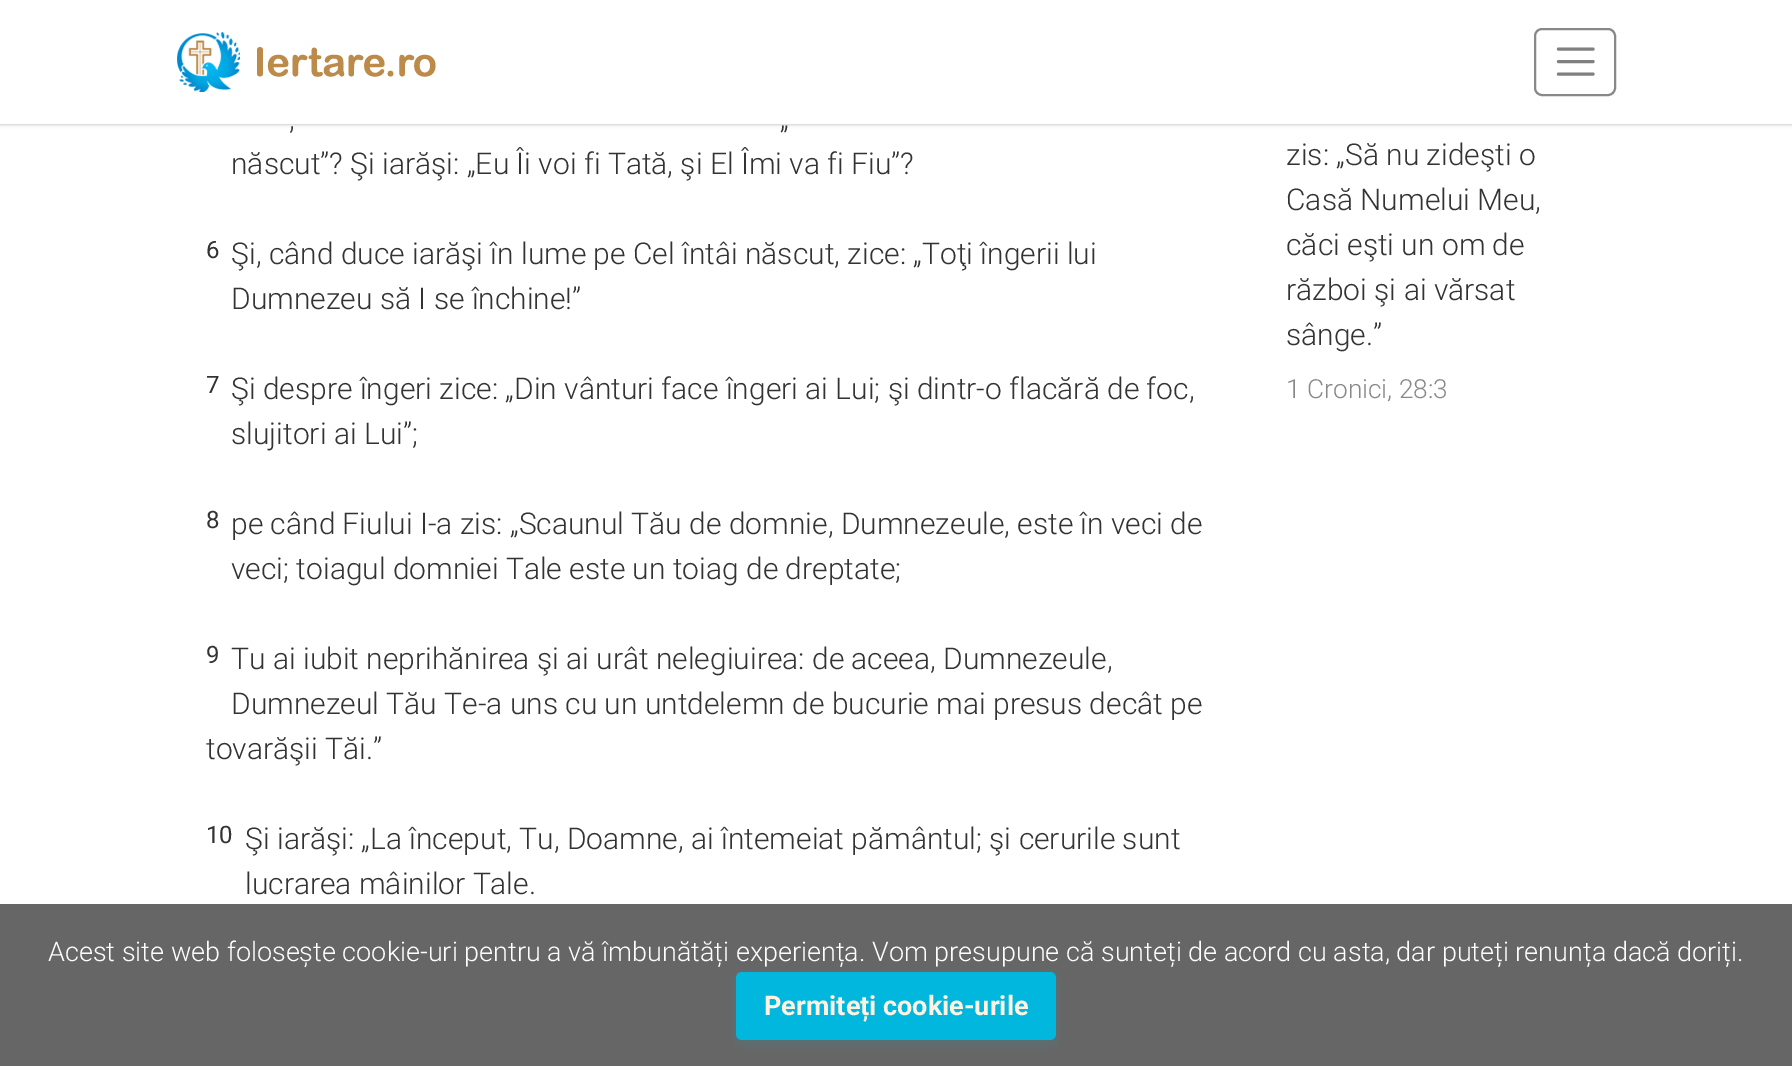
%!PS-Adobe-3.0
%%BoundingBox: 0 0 1792 1066
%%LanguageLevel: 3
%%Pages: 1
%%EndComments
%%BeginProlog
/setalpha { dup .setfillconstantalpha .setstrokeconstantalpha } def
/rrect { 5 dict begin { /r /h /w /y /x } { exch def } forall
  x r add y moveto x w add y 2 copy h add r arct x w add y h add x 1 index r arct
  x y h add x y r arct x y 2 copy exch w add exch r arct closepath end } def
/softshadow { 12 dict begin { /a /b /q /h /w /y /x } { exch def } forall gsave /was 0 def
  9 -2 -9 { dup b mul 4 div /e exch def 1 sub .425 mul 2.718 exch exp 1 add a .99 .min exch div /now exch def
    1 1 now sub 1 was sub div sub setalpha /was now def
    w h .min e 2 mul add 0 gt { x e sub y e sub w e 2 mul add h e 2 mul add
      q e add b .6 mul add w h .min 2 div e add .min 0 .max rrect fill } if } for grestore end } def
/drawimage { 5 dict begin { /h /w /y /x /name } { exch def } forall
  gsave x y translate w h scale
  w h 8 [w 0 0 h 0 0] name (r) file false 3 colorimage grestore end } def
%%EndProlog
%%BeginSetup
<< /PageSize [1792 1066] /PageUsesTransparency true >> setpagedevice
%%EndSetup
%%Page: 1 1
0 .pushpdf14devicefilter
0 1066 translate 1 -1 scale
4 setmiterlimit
1 setgray
0 0 1792 1066 rectfill
0.196 setgray
0 0 1792 124 0 2 0.4 softshadow
1 setgray
0 0 1792 124 rectfill
(images/1.raw) 177 32 259 60 drawimage
0.533 setgray
2 setlinewidth
1535 29 80 66 7 rrect stroke
0.502 setgray
3.1 setlinewidth
1 setlinecap
newpath 1558.5 49 moveto 1593 49 lineto 1558.5 61.5 moveto 1593 61.5 lineto 1558.5 74 moveto 1593 74 lineto stroke
0.4 setgray
0 904 1792 162 rectfill
0.004 0.718 0.871 setrgbcolor
736 976 320 68 6 5 0.15 softshadow
736 972 320 68 6 rrect fill
/Roboto-Light [30 0 0 -30 0 0] selectfont
0.2 setgray
289 129 moveto (,) show
780 129 moveto („) show
231 174 moveto (născut”? Şi iarăşi: „Eu Îi voi fi Tată, şi El Îmi va fi Fiu”?) show
/Roboto-Regular [24 0 0 -24 0 0] selectfont
206 258 moveto (6) show
/Roboto-Light [30 0 0 -30 0 0] selectfont
231 264 moveto (Şi, când duce iarăşi în lume pe Cel întâi născut, zice: „Toţi îngerii lui) show
231 309 moveto (Dumnezeu să I se închine!”) show
/Roboto-Regular [24 0 0 -24 0 0] selectfont
206 393 moveto (7) show
/Roboto-Light [30 0 0 -30 0 0] selectfont
231 399 moveto (Şi despre îngeri zice: „Din vânturi face îngeri ai Lui; şi dintr-o flacără de foc,) show
231 444 moveto (slujitori ai Lui”;) show
/Roboto-Regular [24 0 0 -24 0 0] selectfont
206 528 moveto (8) show
/Roboto-Light [30 0 0 -30 0 0] selectfont
231 534 moveto (pe când Fiului I-a zis: „Scaunul Tău de domnie, Dumnezeule, este în veci de) show
231 579 moveto (veci; toiagul domniei Tale este un toiag de dreptate;) show
/Roboto-Regular [24 0 0 -24 0 0] selectfont
206 663 moveto (9) show
/Roboto-Light [30 0 0 -30 0 0] selectfont
231 669 moveto (Tu ai iubit neprihănirea şi ai urât nelegiuirea: de aceea, Dumnezeule,) show
231 714 moveto (Dumnezeul Tău Te-a uns cu un untdelemn de bucurie mai presus decât pe) show
206 759 moveto (tovarăşii Tăi.”) show
/Roboto-Regular [24 0 0 -24 0 0] selectfont
206 843 moveto (10) show
/Roboto-Light [30 0 0 -30 0 0] selectfont
245 849 moveto (Şi iarăşi: „La început, Tu, Doamne, ai întemeiat pământul; şi cerurile sunt) show
245 894 moveto (lucrarea mâinilor Tale.) show
1286 165 moveto (zis: „Să nu zideşti o) show
1286 210 moveto (Casă Numelui Meu,) show
1286 255 moveto (căci eşti un om de) show
1286 300 moveto (război şi ai vărsat) show
1286 345 moveto (sânge.”) show
/Roboto-Light [26.25 0 0 -26.25 0 0] selectfont
0.533 setgray
1286 398 moveto (1 Cronici, 28:3) show
/Roboto-Light [27 0 0 -27 0 0] selectfont
1 setgray
48 961 moveto (Acest site web folosește cookie-uri pentru a vă îmbunătăți experiența. Vom presupune că sunteți de acord cu asta, dar puteți renunța dacă doriți.) show
/Roboto-Bold [27 0 0 -27 0 0] selectfont
1 0.949 0.878 setrgbcolor
764 1015 moveto (Permiteți cookie-urile) show
.poppdf14devicefilter showpage
%%EOF
